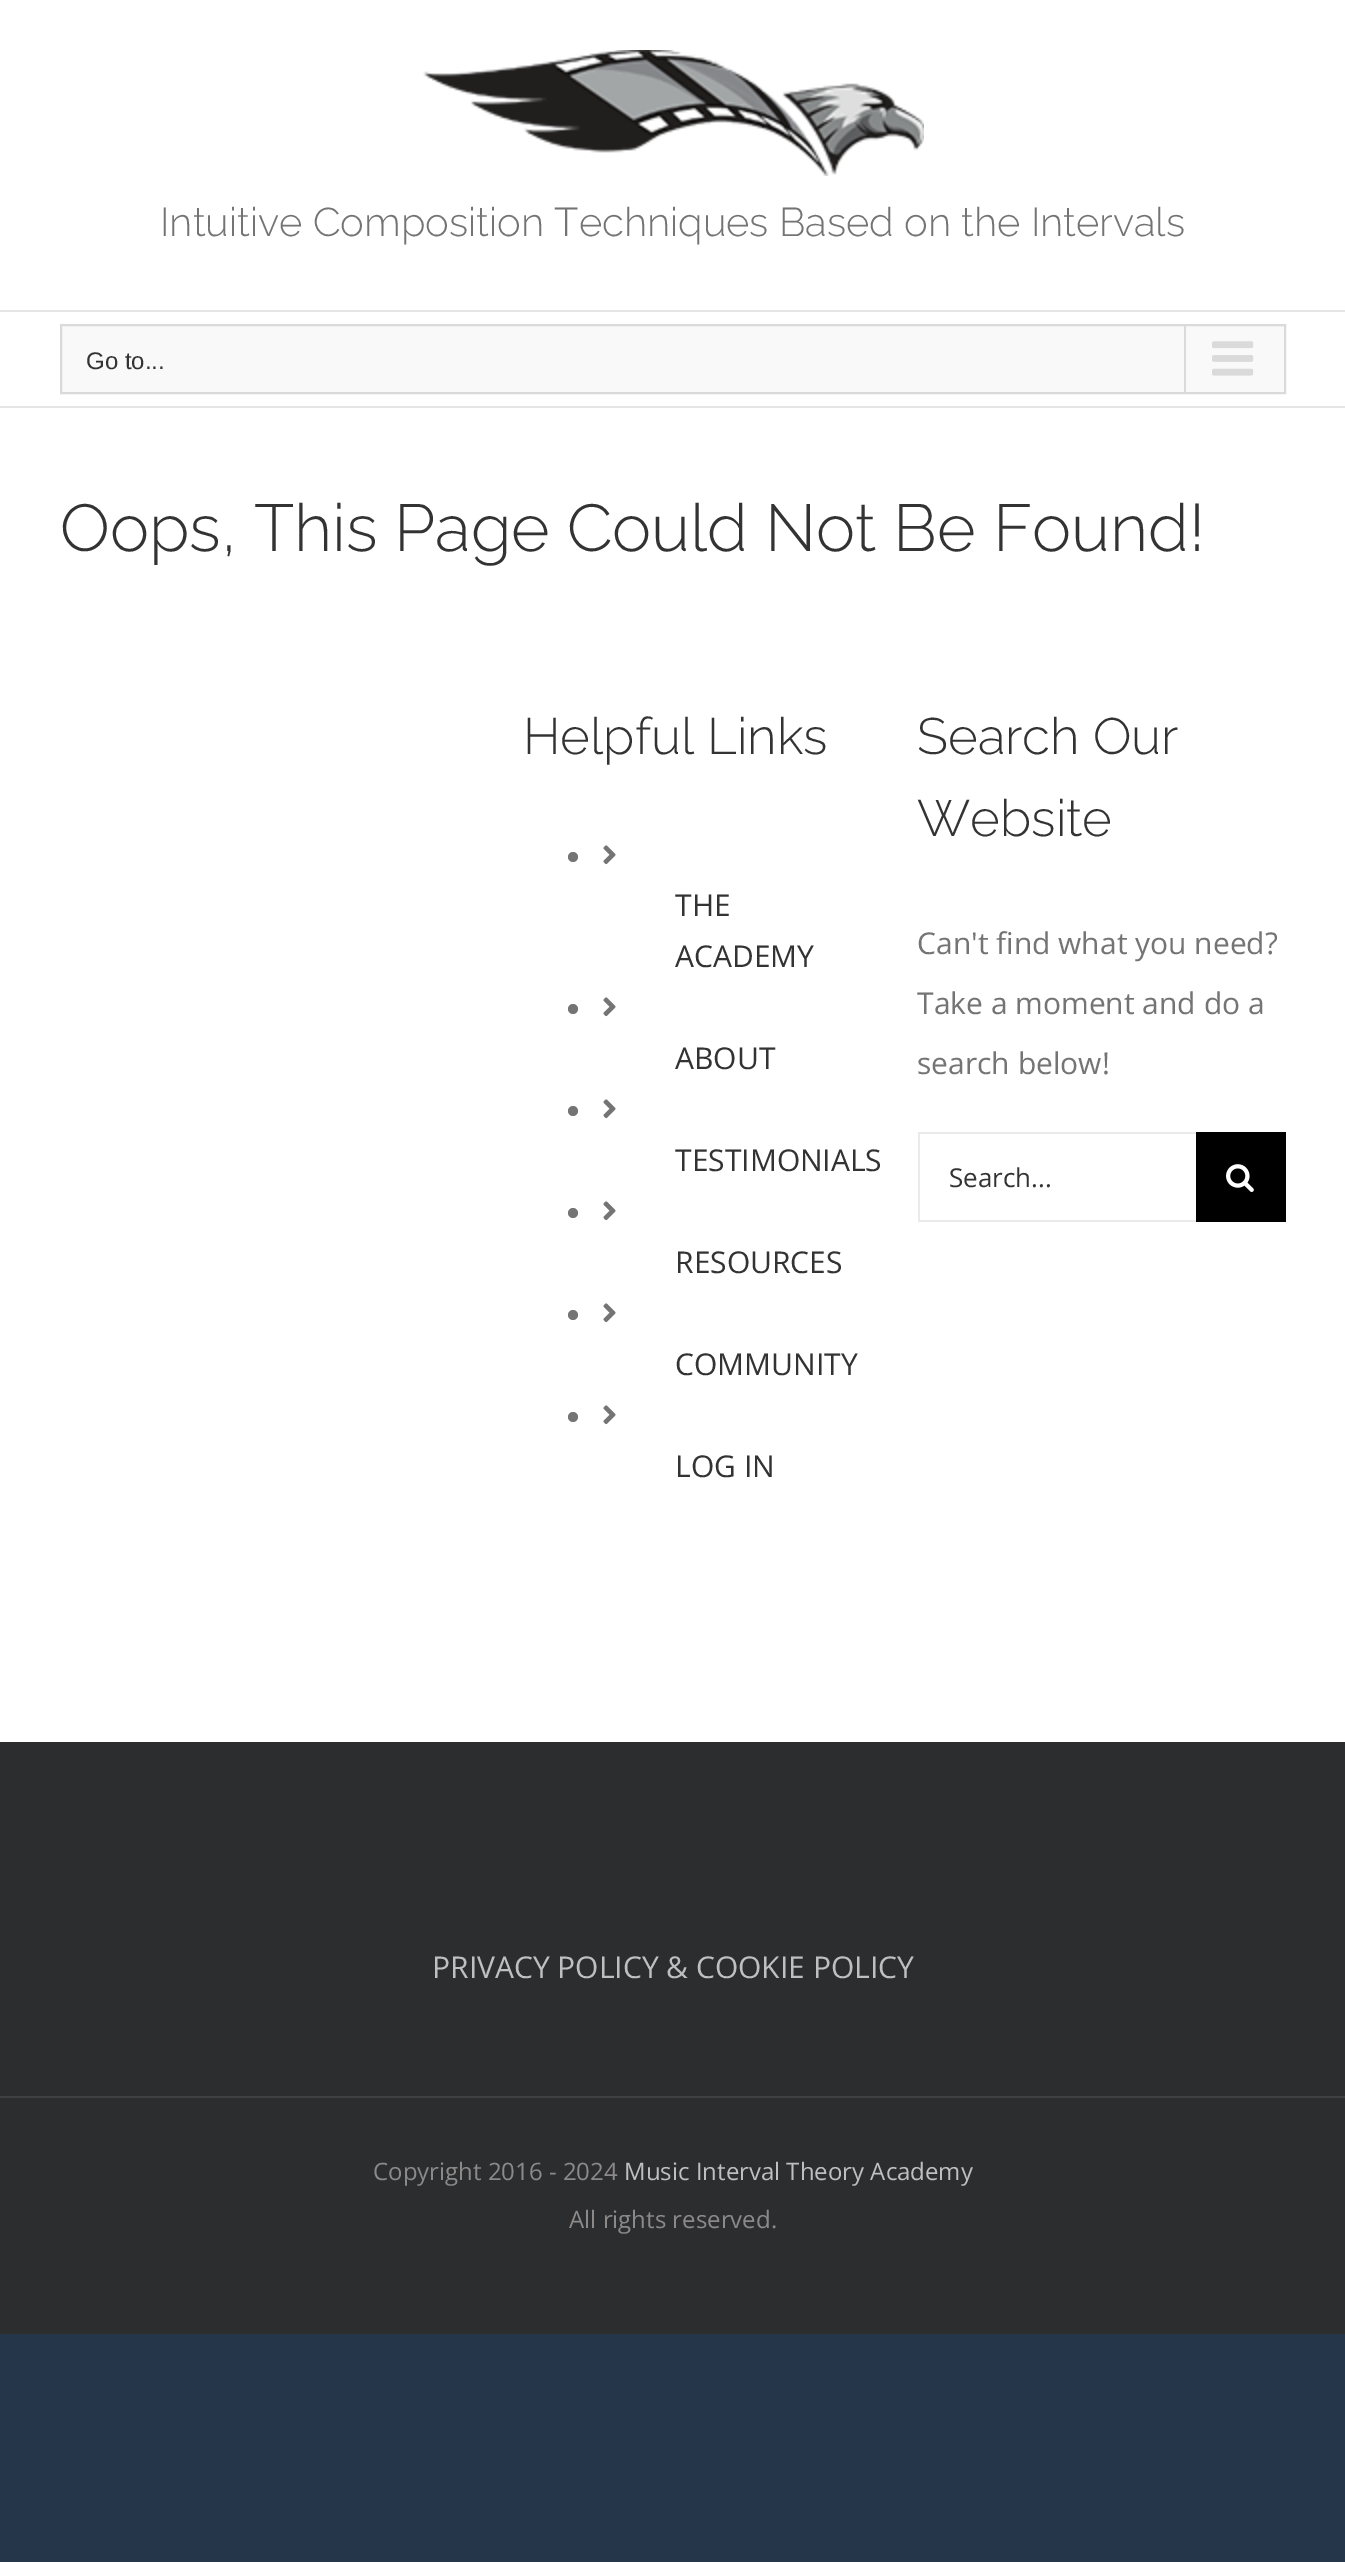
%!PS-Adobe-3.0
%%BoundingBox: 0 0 1345 2562
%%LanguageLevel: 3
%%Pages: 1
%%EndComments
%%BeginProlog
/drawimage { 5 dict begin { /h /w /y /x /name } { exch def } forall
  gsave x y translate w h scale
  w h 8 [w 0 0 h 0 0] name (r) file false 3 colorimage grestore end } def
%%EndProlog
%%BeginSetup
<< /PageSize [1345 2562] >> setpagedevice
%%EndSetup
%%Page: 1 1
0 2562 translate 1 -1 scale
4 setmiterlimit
0.145 0.208 0.29 setrgbcolor
0 0 1345 2562 rectfill
1 setgray
0 0 1345 1742 rectfill
0.898 setgray
0 310 1345 2 rectfill
(images/1.raw) 423 50 501 126 drawimage
0 406 1345 2 rectfill
0.976 setgray
newpath 61 325 moveto 1285 325 lineto 1285 393 lineto 61 393 lineto closepath gsave fill grestore
0.855 setgray
2 setlinewidth
stroke
1184 326 2 66 rectfill
(images/2.raw) 1212 341 42 35 drawimage
0.455 setgray
newpath 573 857 5 0 360 arc closepath fill
(images/3.raw) 603 845 13 20 drawimage
newpath 573 1009 5 0 360 arc closepath fill
(images/3.raw) 603 997 13 20 drawimage
newpath 573 1111 5 0 360 arc closepath fill
(images/3.raw) 603 1099 13 20 drawimage
newpath 573 1213 5 0 360 arc closepath fill
(images/3.raw) 603 1201 13 20 drawimage
newpath 573 1315 5 0 360 arc closepath fill
(images/3.raw) 603 1303 13 20 drawimage
newpath 573 1417 5 0 360 arc closepath fill
(images/3.raw) 603 1405 13 20 drawimage
0.918 setgray
918 1132 278 2 rectfill
918 1220 278 2 rectfill
918 1132 2 90 rectfill
0 setgray
1196 1132 90 90 rectfill
(images/4.raw) 1226 1164 28 28 drawimage
0.173 0.176 0.184 setrgbcolor
0 1742 1345 354 rectfill
0 2098 1345 236 rectfill
0.251 0.251 0.259 setrgbcolor
0 2096 1345 2 rectfill
/Raleway-Light [40 0 0 -40 0 0] selectfont
0.455 setgray
160 236 moveto (Intuitive Composition Techniques Based on the Intervals) show
/LiberationSans-Regular [24 0 0 -24 0 0] selectfont
0.2 setgray
86 369 moveto (Go to...) show
/Raleway-Light [66.1 0 0 -66.1 0 0] selectfont
60 551 moveto (Oops, This Page Could Not Be Found!) show
/Raleway-Light [51 0 0 -51 0 0] selectfont
523 754 moveto (Helpful Links) show
/OpenSans-Regular [30 0 0 -30 0 0] selectfont
675 916 moveto (THE) show
675 967 moveto (ACADEMY) show
675 1069 moveto (ABOUT) show
675 1171 moveto (TESTIMONIALS) show
675 1273 moveto (RESOURCES) show
675 1375 moveto (COMMUNITY) show
675 1477 moveto (LOG IN) show
/Raleway-Light [51 0 0 -51 0 0] selectfont
917 754 moveto (Search Our) show
917 836 moveto (Website) show
/OpenSans-Regular [30 0 0 -30 0 0] selectfont
0.455 setgray
917 954 moveto (Can't find what you need?) show
917 1014 moveto (Take a moment and do a) show
917 1074 moveto (search below!) show
/OpenSans-Regular [26 0 0 -26 0 0] selectfont
0.2 setgray
949 1187 moveto (Search...) show
/OpenSans-Regular [30 0 0 -30 0 0] selectfont
0.749 setgray
432 1978 moveto (PRIVACY POLICY & COOKIE POLICY) show
/OpenSans-Regular [24 0 0 -24 0 0] selectfont
0.549 0.537 0.537 setrgbcolor
373 2180 moveto (Copyright 2016 - 2024) show
0.749 setgray
624 2180 moveto (Music Interval Theory Academy) show
0.549 0.537 0.537 setrgbcolor
569 2228 moveto (All rights reserved.) show
showpage
%%EOF
